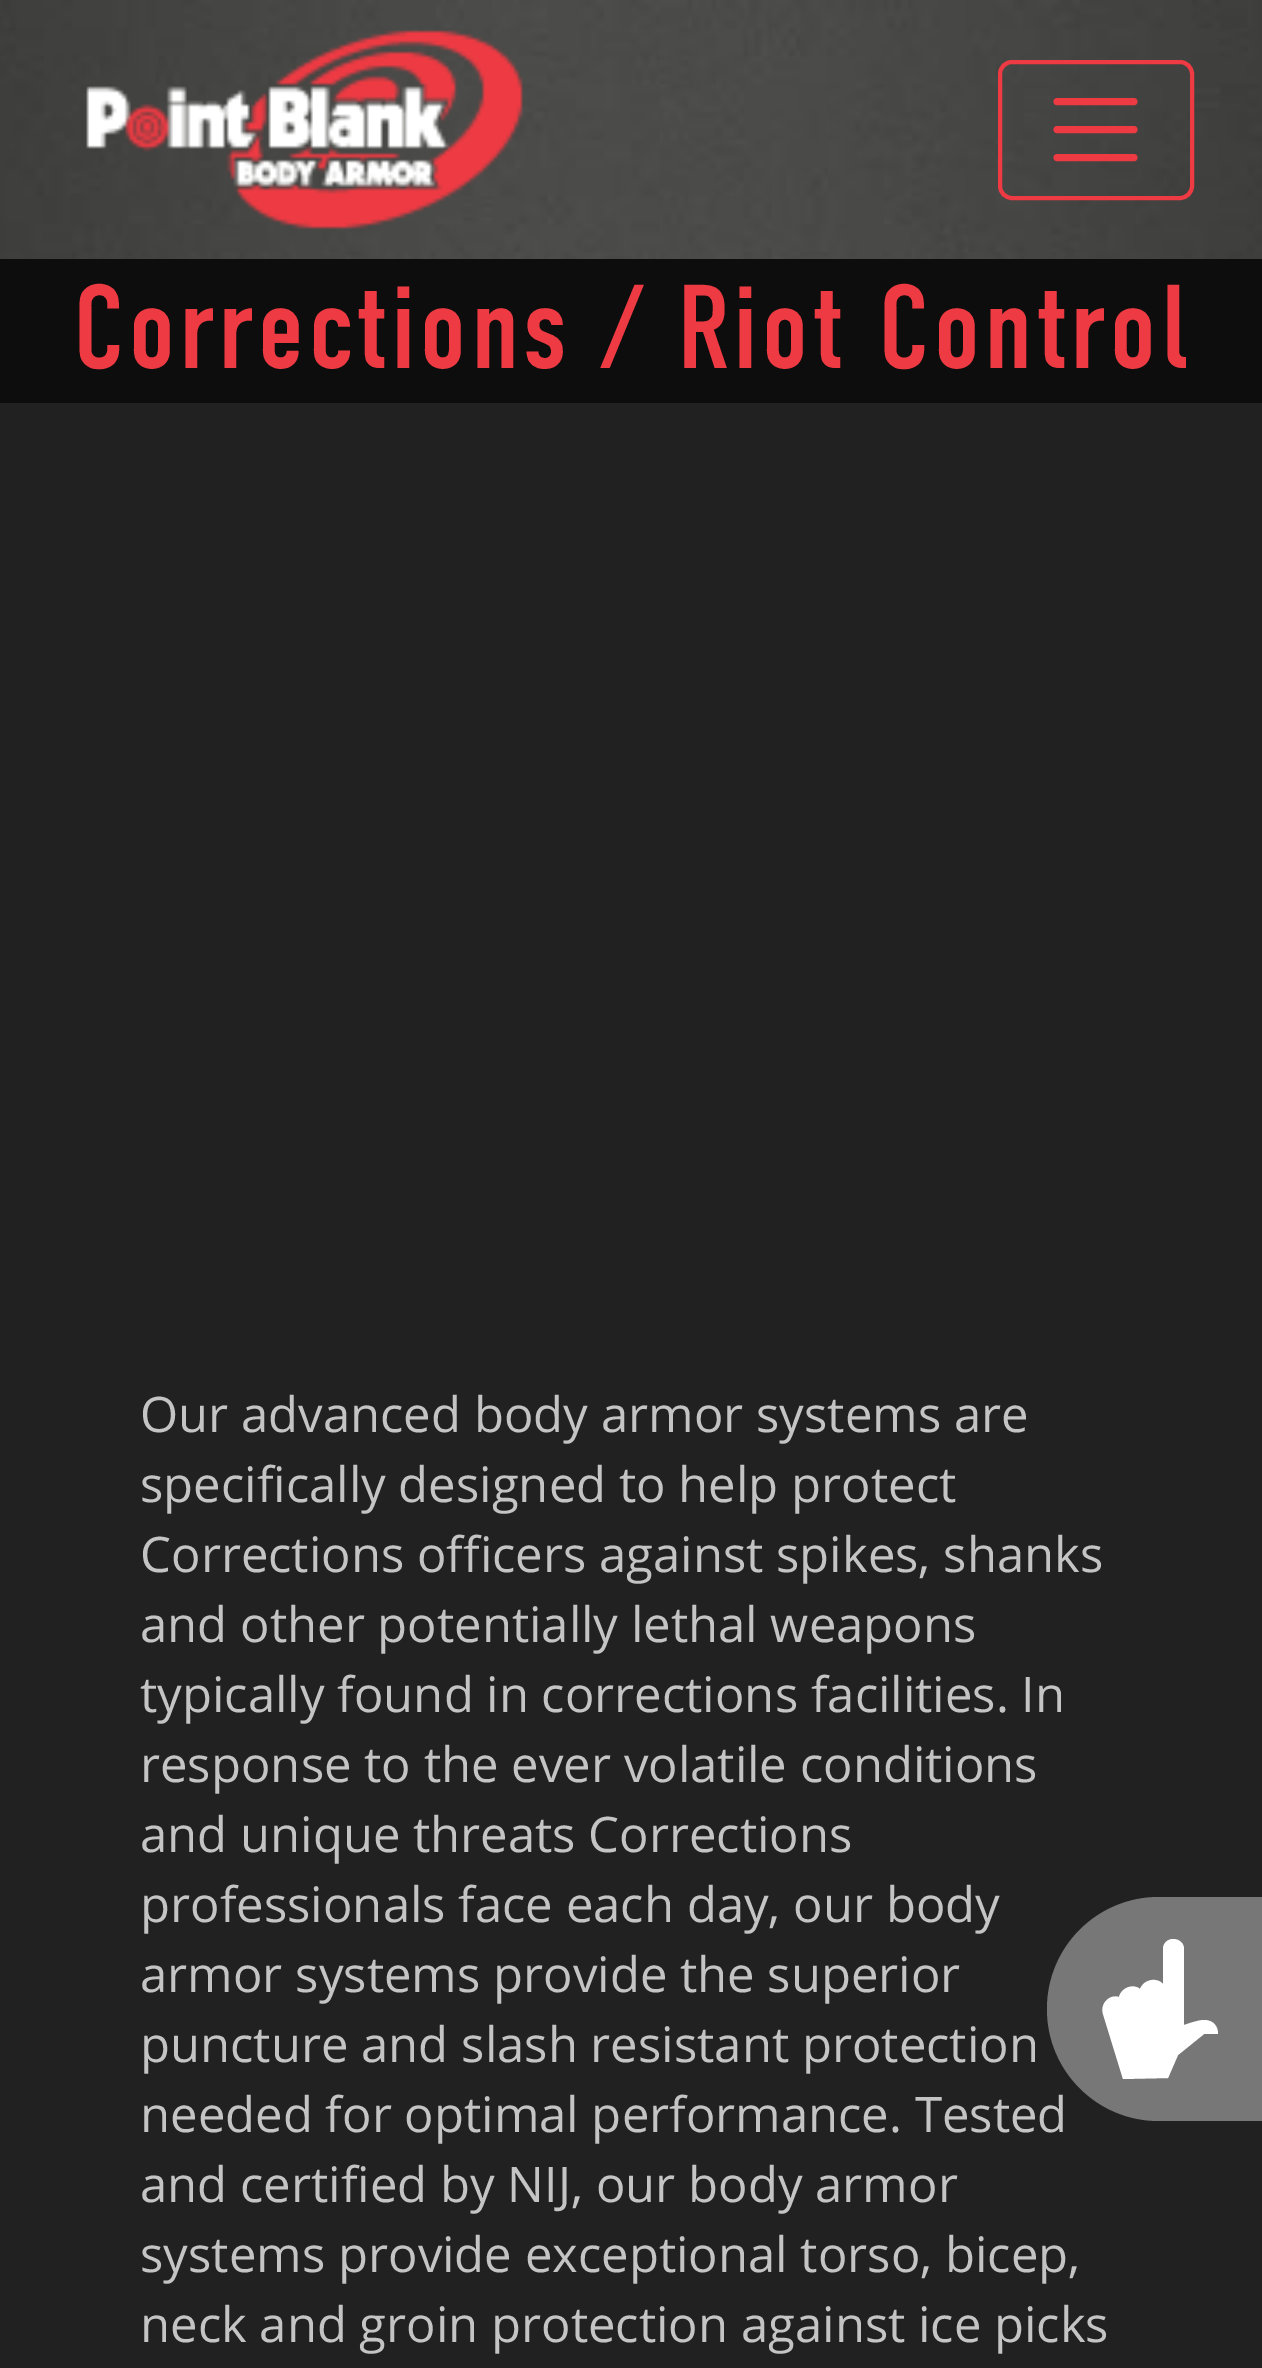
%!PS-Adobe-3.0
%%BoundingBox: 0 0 1262 2368
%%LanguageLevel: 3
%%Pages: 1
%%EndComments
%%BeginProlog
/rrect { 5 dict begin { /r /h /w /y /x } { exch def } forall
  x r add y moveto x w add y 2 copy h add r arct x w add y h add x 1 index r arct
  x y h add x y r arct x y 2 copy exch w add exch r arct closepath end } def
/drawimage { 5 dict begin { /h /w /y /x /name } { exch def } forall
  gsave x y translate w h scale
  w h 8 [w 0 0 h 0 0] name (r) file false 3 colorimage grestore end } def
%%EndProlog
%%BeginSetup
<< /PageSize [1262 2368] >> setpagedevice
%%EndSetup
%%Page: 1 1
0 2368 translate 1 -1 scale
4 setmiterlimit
0.129 setgray
0 0 1262 2368 rectfill
(images/1.raw) 0 0 1262 259 drawimage
(images/2.raw) 86 30 437 199 drawimage
0.933 0.227 0.263 setrgbcolor
4 setlinewidth
1000 62 192 136 12 rrect stroke
7 setlinewidth
1 setlinecap
newpath 1057 101.5 moveto 1134 101.5 lineto 1057 129.5 moveto 1134 129.5 lineto 1057 157.5 moveto 1134 157.5 lineto stroke
0.051 setgray
0 259 1262 144 rectfill
/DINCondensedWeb-Regular [119 0 0 -119 0 0] selectfont
0.933 0.227 0.263 setrgbcolor
73 368 moveto 3.5 0 (Corrections / Riot Control) ashow
/OpenSans-Regular [49 0 0 -49 0 0] selectfont
0.769 setgray
140 1432 moveto (Our advanced body armor systems are) show
140 1502 moveto (specifically designed to help protect) show
140 1572 moveto (Corrections officers against spikes, shanks) show
140 1642 moveto (and other potentially lethal weapons) show
140 1712 moveto (typically found in corrections facilities. In) show
140 1782 moveto (response to the ever volatile conditions) show
140 1852 moveto (and unique threats Corrections) show
140 1922 moveto (professionals face each day, our body) show
140 1992 moveto (armor systems provide the superior) show
140 2062 moveto (puncture and slash resistant protection) show
140 2132 moveto (needed for optimal performance. Tested) show
140 2202 moveto (and certified by NIJ, our body armor) show
140 2272 moveto (systems provide exceptional torso, bicep,) show
140 2342 moveto (neck and groin protection against ice picks) show
0.467 setgray
newpath 1159 1897 moveto 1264 1897 lineto 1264 2121 lineto 1159 2121 lineto 1097 2121 1047 2071 1047 2009 curveto 1047 1947 1097 1897 1159 1897 curveto closepath fill
1 setgray
newpath 1103 2014 moveto 1123 2079 lineto 1168 2078 lineto 1178 2055 lineto 1204 2034 lineto 1218 2034 lineto 1218 2027 1214 2020 1204 2020 curveto 1199 2020 1190 2023 1184 2025 curveto 1184 1949 lineto 1184 1943 1179 1939 1173 1939 curveto 1168 1939 1163 1943 1163 1949 curveto 1163 1984 lineto 1157 1977 1144 1979 1140 1989 curveto 1133 1983 1121 1988 1119 1997 curveto 1109 1994 1100 2004 1103 2014 curveto closepath fill
showpage
%%EOF
